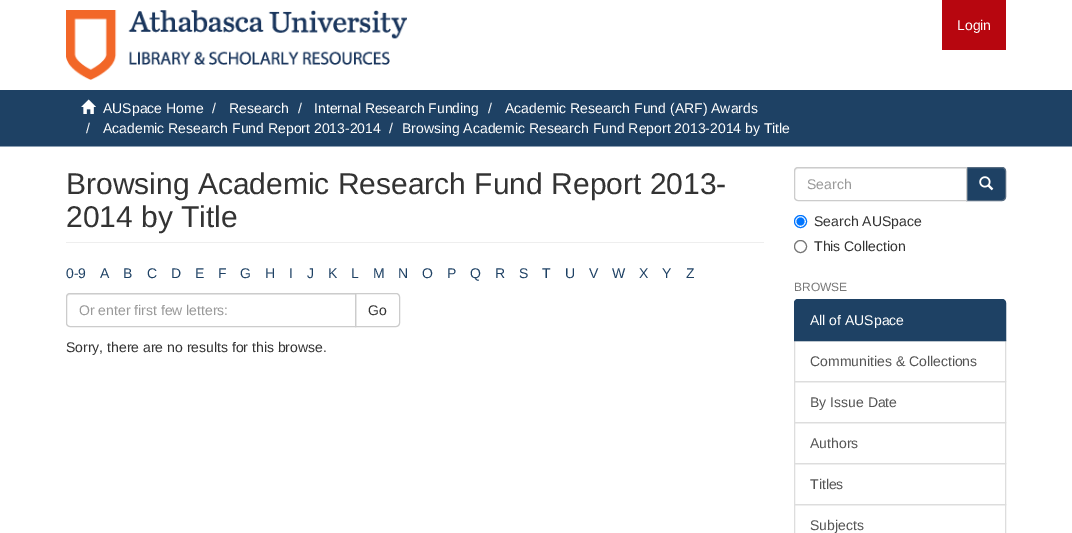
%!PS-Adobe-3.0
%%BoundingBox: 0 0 1072 533
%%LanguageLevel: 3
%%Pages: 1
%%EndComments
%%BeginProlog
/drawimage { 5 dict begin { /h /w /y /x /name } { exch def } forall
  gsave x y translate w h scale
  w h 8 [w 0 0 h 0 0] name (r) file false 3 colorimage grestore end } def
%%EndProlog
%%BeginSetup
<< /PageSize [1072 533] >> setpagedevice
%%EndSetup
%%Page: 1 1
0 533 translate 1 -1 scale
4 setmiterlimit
1 setgray
0 0 1072 533 rectfill
(images/1.raw) 66 10 341 70 drawimage
0.718 0.024 0.059 setrgbcolor
942 0 64 50 rectfill
0.118 0.255 0.392 setrgbcolor
0 90 1072 56 rectfill
0.545 0.62 0.698 setrgbcolor
0 146 1072 1 rectfill
(images/2.raw) 81 99 15 15 drawimage
0.933 setgray
66 242 698 1 rectfill
0.8 setgray
newpath 355.5 293.5 moveto 396 293.5 lineto 398 293.5 399.5 295 399.5 297 curveto 399.5 323 lineto 399.5 325 398 326.5 396 326.5 curveto 355.5 326.5 lineto closepath stroke
1 setgray
newpath 70 293 moveto 356 293 lineto 356 327 lineto 70 327 lineto 68 327 66 325 66 323 curveto 66 297 lineto 66 295 68 293 70 293 curveto closepath fill
0.925 setgray
newpath 70 295 moveto 355 295 lineto 355 294 lineto 70 294 lineto 68 294 67 296 67 298 curveto 67 296 68 295 70 295 curveto closepath fill
0.8 setgray
newpath 70 293.5 moveto 355.5 293.5 lineto 355.5 326.5 lineto 70 326.5 lineto 68 326.5 66.5 325 66.5 323 curveto 66.5 297 lineto 66.5 295 68 293.5 70 293.5 curveto closepath stroke
0.118 0.255 0.392 setrgbcolor
newpath 966.5 167.5 moveto 1002 167.5 lineto 1004 167.5 1005.5 169 1005.5 171 curveto 1005.5 197 lineto 1005.5 199 1004 200.5 1002 200.5 curveto 966.5 200.5 lineto closepath gsave fill grestore
0.337 0.42 0.506 setrgbcolor
stroke
1 setgray
newpath 798 167 moveto 967 167 lineto 967 201 lineto 798 201 lineto 796 201 794 199 794 197 curveto 794 171 lineto 794 169 796 167 798 167 curveto closepath fill
0.925 setgray
newpath 798 169 moveto 966 169 lineto 966 168 lineto 797 168 lineto 795 168 795 170 795 172 curveto 795 170 796 169 798 169 curveto closepath fill
0.8 setgray
newpath 798 167.5 moveto 966.5 167.5 lineto 966.5 200.5 lineto 798 200.5 lineto 796 200.5 794.5 199 794.5 197 curveto 794.5 171 lineto 794.5 169 796 167.5 798 167.5 curveto closepath stroke
(images/3.raw) 979 176 15 15 drawimage
0 0.459 1 setrgbcolor
newpath 800.5 221.5 6 0 360 arc closepath stroke
newpath 800.5 221.5 4 0 360 arc closepath fill
0.463 setgray
newpath 800.5 246.5 6 0 360 arc closepath stroke
0.867 setgray
794.5 340.5 211 41 rectstroke
0.118 0.255 0.392 setrgbcolor
newpath 798 299.5 moveto 1002 299.5 lineto 1004 299.5 1005.5 301 1005.5 303 curveto 1005.5 340.5 lineto 794.5 340.5 lineto 794.5 303 lineto 794.5 301 796 299.5 798 299.5 curveto closepath gsave fill grestore
stroke
0.867 setgray
794.5 381.5 211 41 rectstroke
794.5 422.5 211 41 rectstroke
794.5 463.5 211 41 rectstroke
794.5 504.5 211 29 rectstroke
/LiberationSans-Regular [14 0 0 -14 0 0] selectfont
1 setgray
957 30 moveto (Login) show
103 113 moveto (AUSpace Home) show
212 113 moveto (/) show
229 113 moveto (Research) show
298 113 moveto (/) show
314 113 moveto (Internal Research Funding) show
488 113 moveto (/) show
505 113 moveto (Academic Research Fund \(ARF\) Awards) show
86 133 moveto (/) show
103 133 moveto (Academic Research Fund Report 2013-2014) show
389 133 moveto (/) show
402 133 moveto (Browsing Academic Research Fund Report 2013-2014 by Title) show
/LiberationSans-Regular [30 0 0 -30 0 0] selectfont
0.2 setgray
66 194 moveto (Browsing Academic Research Fund Report 2013-) show
66 227 moveto (2014 by Title) show
/LiberationSans-Regular [14 0 0 -14 0 0] selectfont
0.118 0.255 0.392 setrgbcolor
66 278 moveto (0-9) show
100 278 moveto (A) show
123 278 moveto (B) show
147 278 moveto (C) show
171 278 moveto (D) show
195 278 moveto (E) show
218 278 moveto (F) show
240 278 moveto (G) show
265 278 moveto (H) show
289 278 moveto (I) show
307 278 moveto (J) show
328 278 moveto (K) show
351 278 moveto (L) show
373 278 moveto (M) show
398 278 moveto (N) show
422 278 moveto (O) show
447 278 moveto (P) show
470 278 moveto (Q) show
495 278 moveto (R) show
519 278 moveto (S) show
542 278 moveto (T) show
565 278 moveto (U) show
589 278 moveto (V) show
612 278 moveto (W) show
639 278 moveto (X) show
662 278 moveto (Y) show
686 278 moveto (Z) show
0.6 setgray
79 315 moveto (Or enter first few letters:) show
0.2 setgray
368 315 moveto (Go) show
66 352 moveto (Sorry, there are no results for this browse.) show
0.6 setgray
807 189 moveto (Search) show
0.2 setgray
814 226 moveto (Search AUSpace) show
814 251 moveto (This Collection) show
/LiberationSans-Regular [12 0 0 -12 0 0] selectfont
0.467 setgray
794 291 moveto (BROWSE) show
/LiberationSans-Regular [14 0 0 -14 0 0] selectfont
1 setgray
810 325 moveto (All of AUSpace) show
0.333 setgray
810 366 moveto (Communities & Collections) show
810 407 moveto (By Issue Date) show
810 448 moveto (Authors) show
810 489 moveto (Titles) show
810 530 moveto (Subjects) show
showpage
%%EOF
